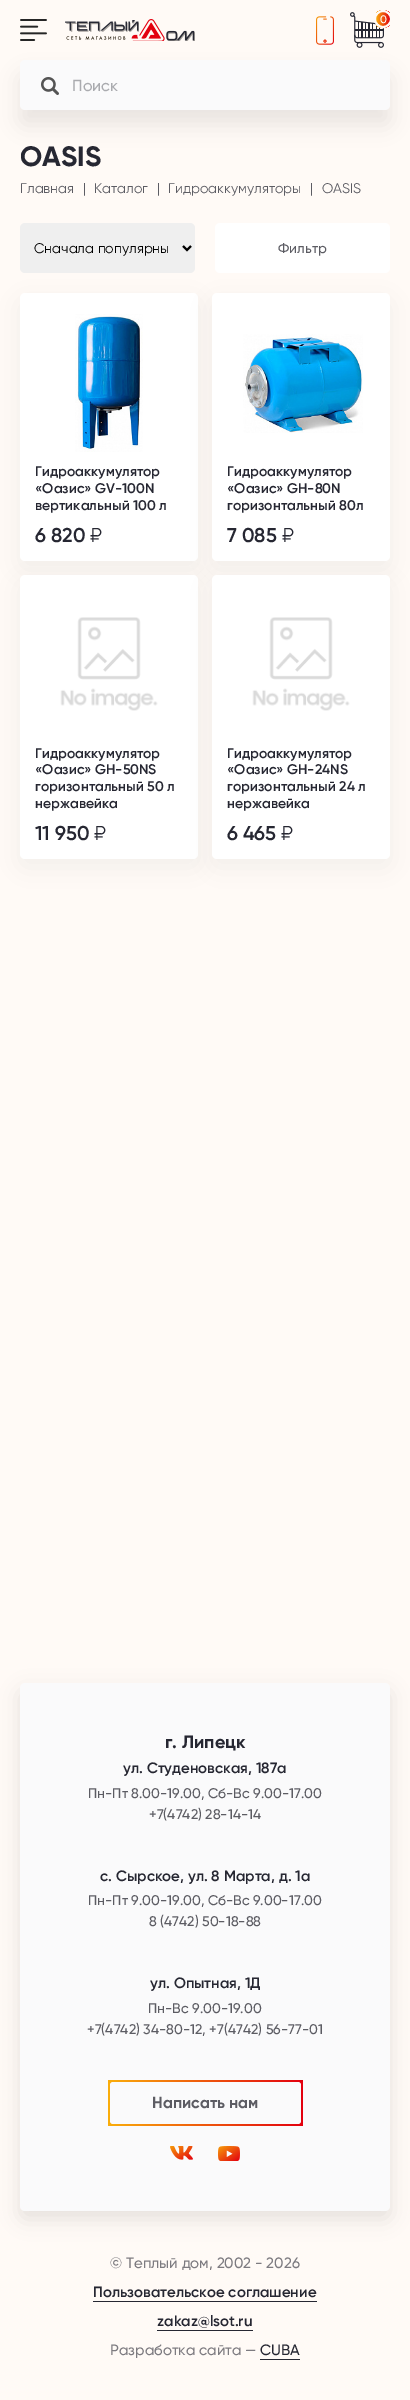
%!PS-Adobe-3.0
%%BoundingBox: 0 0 410 2400
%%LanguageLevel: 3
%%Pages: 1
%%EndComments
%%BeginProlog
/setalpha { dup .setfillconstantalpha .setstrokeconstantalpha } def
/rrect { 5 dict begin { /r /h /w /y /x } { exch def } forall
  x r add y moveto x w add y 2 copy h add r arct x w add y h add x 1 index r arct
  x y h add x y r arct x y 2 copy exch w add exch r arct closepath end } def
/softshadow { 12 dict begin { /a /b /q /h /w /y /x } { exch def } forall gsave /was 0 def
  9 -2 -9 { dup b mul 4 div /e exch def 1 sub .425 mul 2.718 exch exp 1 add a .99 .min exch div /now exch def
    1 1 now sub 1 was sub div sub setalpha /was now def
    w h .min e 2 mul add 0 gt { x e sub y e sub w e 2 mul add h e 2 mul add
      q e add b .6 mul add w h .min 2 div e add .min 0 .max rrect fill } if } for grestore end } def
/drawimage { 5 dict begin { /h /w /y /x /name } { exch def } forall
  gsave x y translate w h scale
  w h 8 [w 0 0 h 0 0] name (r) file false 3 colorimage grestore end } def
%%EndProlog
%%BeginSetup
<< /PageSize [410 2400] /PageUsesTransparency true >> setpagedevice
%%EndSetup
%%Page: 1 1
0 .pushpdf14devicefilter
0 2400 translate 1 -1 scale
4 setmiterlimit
1 0.98 0.965 setrgbcolor
0 0 410 2400 rectfill
(images/1.raw) 20 19 27 22 drawimage
(images/2.raw) 65 19 130 22 drawimage
(images/3.raw) 316 16 18 29 drawimage
(images/4.raw) 350 12 34 36 drawimage
gsave
374 10 18 18 9 rrect clip newpath
gsave newpath 376 10 moveto 390 10 lineto 390 28 lineto 376 28 lineto closepath clip newpath
<< /ShadingType 2 /ColorSpace /DeviceRGB /Coords [376 19 390 19] /Extend [true true] /Function << /FunctionType 2 /Domain [0 1] /C0 [0.98 0.682 0.043] /C1 [0.89 0 0.059] /N 1 >> >> shfill grestore
grestore
2 setlinewidth
newpath 383 19 8 0 360 arc closepath stroke
0.149 0.153 0.196 setrgbcolor
20 75 370 50 5 10 0.1 softshadow
0.98 0.98 0.984 setrgbcolor
20 60 370 50 5 rrect fill
(images/5.raw) 41 77 18 18 drawimage
0.937 setgray
20 223 175 50 5 rrect fill
0 setgray
newpath 183 246 moveto 187 250 lineto 191 246 lineto stroke
1 setgray
215 223 175 50 5 rrect fill
0.149 0.153 0.196 setrgbcolor
20 301 178 268 5 12.5 0.05 softshadow
1 setgray
20 293 178 268 5 rrect fill
(images/6.raw) 75 314 68 138 drawimage
0.149 0.153 0.196 setrgbcolor
212 301 178 268 5 12.5 0.05 softshadow
1 setgray
212 293 178 268 5 rrect fill
(images/7.raw) 243 334 120 99 drawimage
0.149 0.153 0.196 setrgbcolor
20 583 178 284 5 12.5 0.05 softshadow
1 setgray
20 575 178 284 5 rrect fill
(images/8.raw) 60 617 98 94 drawimage
0.149 0.153 0.196 setrgbcolor
212 583 178 284 5 12.5 0.05 softshadow
1 setgray
212 575 178 284 5 rrect fill
(images/8.raw) 252 617 98 94 drawimage
0 setgray
20 1691 370 528 5 10 0.1 softshadow
0.98 0.98 0.984 setrgbcolor
20 1683 370 528 5 rrect fill
gsave 108 2080 195 46 3 rrect clip newpath
<< /ShadingType 2 /ColorSpace /DeviceRGB /Coords [108 2103 303 2103] /Extend [true true] /Function << /FunctionType 2 /Domain [0 1] /C0 [0.98 0.682 0.043] /C1 [0.89 0 0.059] /N 1 >> >> shfill grestore
110 2082 191 42 3 rrect fill
(images/9.raw) 170 2146 23 14 drawimage
(images/10.raw) 218 2146 22 15 drawimage
0.149 0.153 0.196 setrgbcolor
93 2301 224 1 rectfill
157 2330 96 1 rectfill
260 2359 40 1 rectfill
/Gilroy-Medium [11 0 0 -11 0 0] selectfont
1 setgray
380 23 moveto (0) show
/Gilroy-Medium [16 0 0 -16 0 0] selectfont
0.667 0.671 0.686 setrgbcolor
72 91 moveto (Поиск) show
/Gilroy-Bold [28 0 0 -28 0 0] selectfont
0.149 0.153 0.196 setrgbcolor
20 166 moveto (OASIS) show
/Gilroy-Regular [14 0 0 -14 0 0] selectfont
0.361 0.361 0.388 setrgbcolor
20 193 moveto (Главная) show
83 193 moveto (|) show
94 193 moveto (Каталог) show
157 193 moveto (|) show
168 193 moveto (Гидроаккумуляторы) show
310 193 moveto (|) show
322 193 moveto (OASIS) show
0 setgray
34 253 moveto (Сначала популярны) show
/Gilroy-Medium [14 0 0 -14 0 0] selectfont
0.361 0.361 0.388 setrgbcolor
278 253 moveto (Фильтр) show
/Gilroy-SemiBold [14 0 0 -14 0 0] selectfont
0.149 0.153 0.196 setrgbcolor
35 476 moveto (Гидроаккумулятор) show
35 493 moveto («Оазис» GV-100N) show
35 510 moveto (вертикальный 100 л) show
/Gilroy-SemiBold [20 0 0 -20 0 0] selectfont
35 542 moveto (6 820) show
/Gilroy-Regular [20 0 0 -20 0 0] selectfont
90 542 moveto (₽) show
/Gilroy-SemiBold [14 0 0 -14 0 0] selectfont
227 476 moveto (Гидроаккумулятор) show
227 493 moveto («Оазис» GH-80N) show
227 510 moveto (горизонтальный 80л) show
/Gilroy-SemiBold [20 0 0 -20 0 0] selectfont
227 542 moveto (7 085) show
/Gilroy-Regular [20 0 0 -20 0 0] selectfont
282 542 moveto (₽) show
/Gilroy-SemiBold [14 0 0 -14 0 0] selectfont
35 758 moveto (Гидроаккумулятор) show
35 774 moveto («Оазис» GH-50NS) show
35 791 moveto (горизонтальный 50 л) show
35 808 moveto (нержавейка) show
/Gilroy-SemiBold [20 0 0 -20 0 0] selectfont
35 840 moveto (11 950) show
/Gilroy-Regular [20 0 0 -20 0 0] selectfont
94 840 moveto (₽) show
/Gilroy-SemiBold [14 0 0 -14 0 0] selectfont
227 758 moveto (Гидроаккумулятор) show
227 774 moveto («Оазис» GH-24NS) show
227 791 moveto (горизонтальный 24 л) show
227 808 moveto (нержавейка) show
/Gilroy-SemiBold [20 0 0 -20 0 0] selectfont
227 840 moveto (6 465) show
/Gilroy-Regular [20 0 0 -20 0 0] selectfont
281 840 moveto (₽) show
/Gilroy-Bold [18 0 0 -18 0 0] selectfont
165 1748 moveto (г. Липецк) show
/Gilroy-SemiBold [15 0 0 -15 0 0] selectfont
123 1773 moveto (ул. Студеновская, 187а) show
/Gilroy-Medium [14 0 0 -14 0 0] selectfont
0.361 0.361 0.388 setrgbcolor
88 1798 moveto (Пн-Пт 8.00-19.00, Сб-Вс 9.00-17.00) show
149 1819 moveto (+7\(4742\) 28-14-14) show
/Gilroy-SemiBold [15 0 0 -15 0 0] selectfont
0.149 0.153 0.196 setrgbcolor
100 1881 moveto (с. Сырское, ул. 8 Марта, д. 1а) show
/Gilroy-Medium [14 0 0 -14 0 0] selectfont
0.361 0.361 0.388 setrgbcolor
88 1905 moveto (Пн-Пт 9.00-19.00, Сб-Вс 9.00-17.00) show
149 1926 moveto (8 \(4742\) 50-18-88) show
/Gilroy-SemiBold [15 0 0 -15 0 0] selectfont
0.149 0.153 0.196 setrgbcolor
150 1988 moveto (ул. Опытная, 1Д) show
/Gilroy-Medium [14 0 0 -14 0 0] selectfont
0.361 0.361 0.388 setrgbcolor
148 2013 moveto (Пн-Вс 9.00-19.00) show
87 2034 moveto (+7\(4742\) 34-80-12, +7\(4742\) 56-77-01) show
/Gilroy-Bold [16 0 0 -16 0 0] selectfont
152 2108 moveto (Написать нам) show
/Gilroy-Medium [15 0 0 -15 0 0] selectfont
0.49 0.482 0.502 setrgbcolor
110 2268 moveto (© Теплый дом, 2002 - 2026) show
/Gilroy-SemiBold [15 0 0 -15 0 0] selectfont
0.149 0.153 0.196 setrgbcolor
93 2297 moveto (Пользовательское соглашение) show
157 2326 moveto (zakaz@lsot.ru) show
/Gilroy-Medium [15 0 0 -15 0 0] selectfont
0.49 0.482 0.502 setrgbcolor
110 2355 moveto (Разработка сайта —) show
0.149 0.153 0.196 setrgbcolor
260 2355 moveto (CUBA) show
.poppdf14devicefilter showpage
%%EOF
